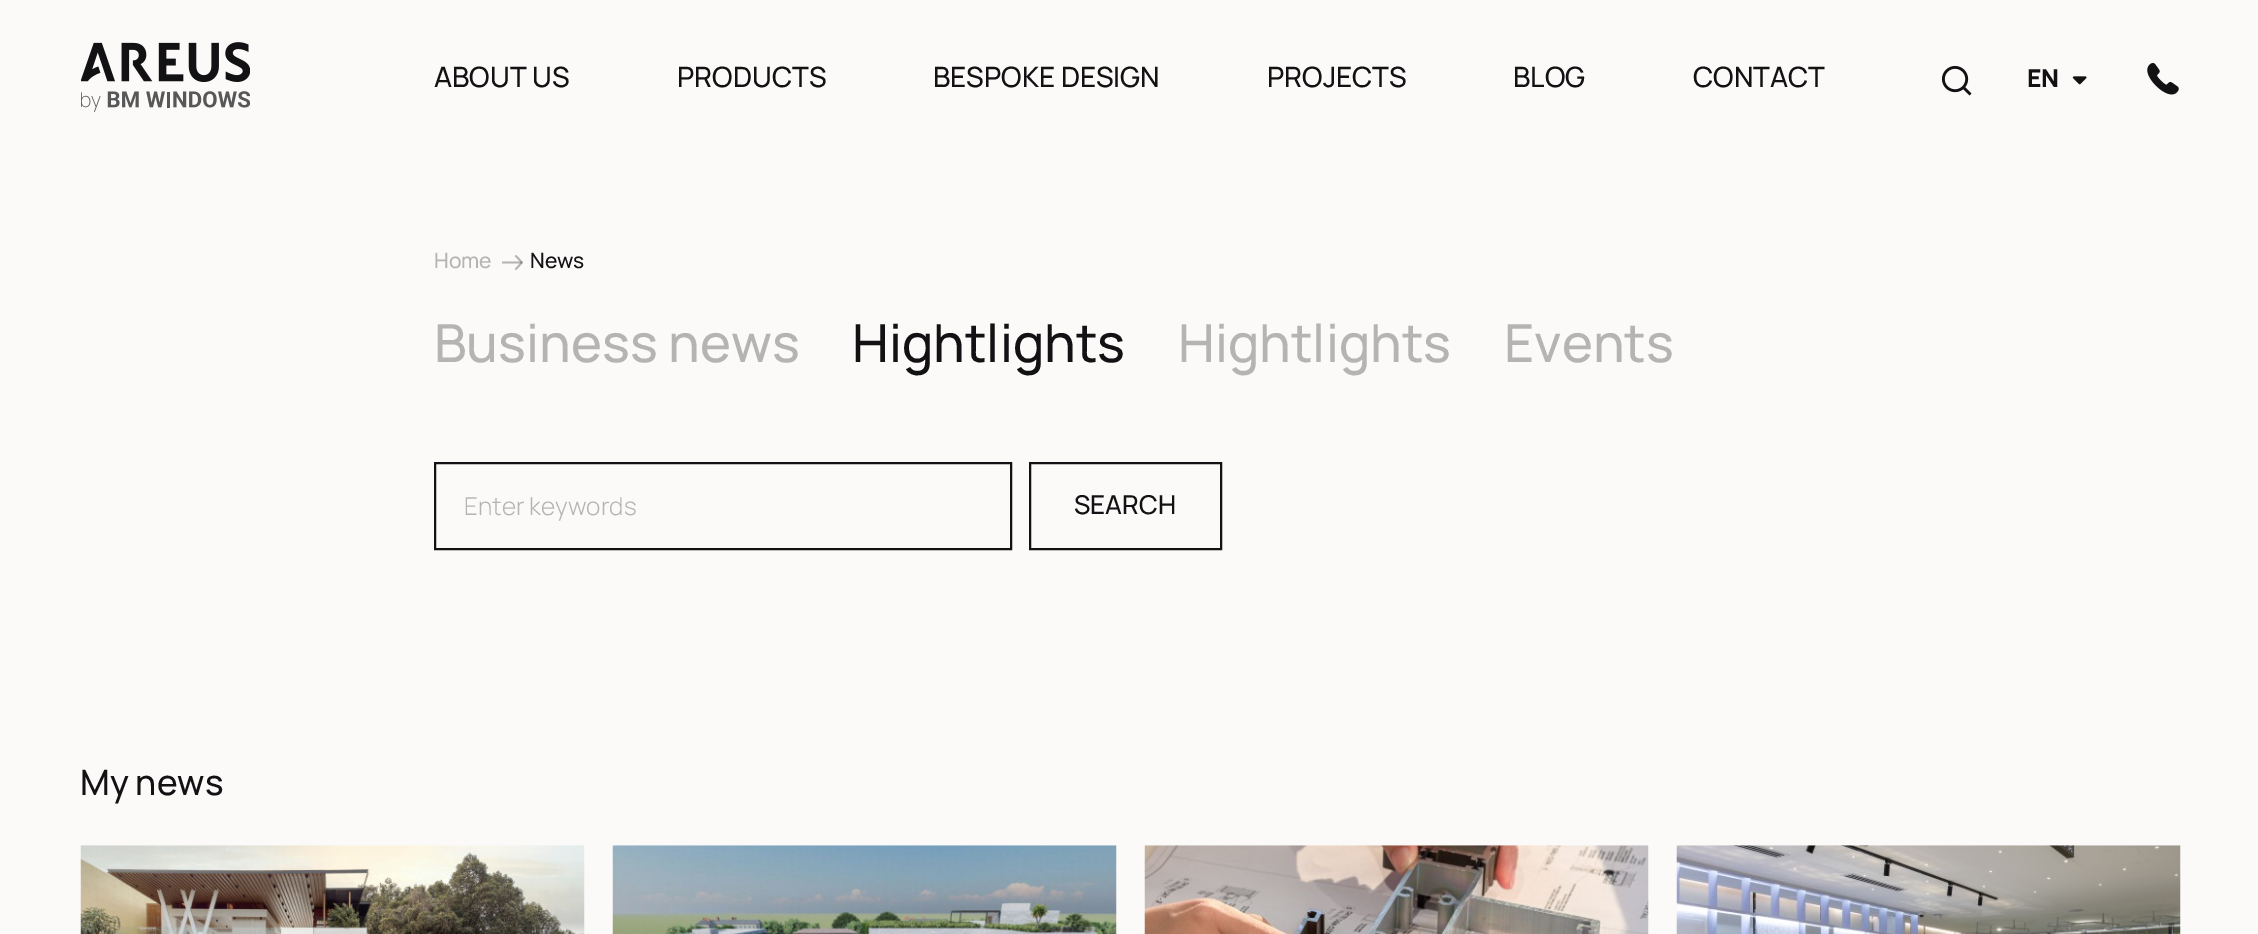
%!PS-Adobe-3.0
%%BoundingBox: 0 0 2258 934
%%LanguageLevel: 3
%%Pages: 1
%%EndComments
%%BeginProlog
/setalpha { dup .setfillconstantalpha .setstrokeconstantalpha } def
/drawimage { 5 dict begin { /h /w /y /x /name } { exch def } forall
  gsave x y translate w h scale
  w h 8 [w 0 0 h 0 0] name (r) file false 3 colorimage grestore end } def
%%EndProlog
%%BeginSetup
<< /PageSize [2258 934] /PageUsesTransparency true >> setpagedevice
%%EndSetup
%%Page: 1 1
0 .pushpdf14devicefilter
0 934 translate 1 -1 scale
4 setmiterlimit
0.984 0.98 0.973 setrgbcolor
0 0 2258 934 rectfill
(images/1.raw) 81 42 169 70 drawimage
(images/2.raw) 1941 65 31 31 drawimage
(images/3.raw) 2072 76 15 9 drawimage
(images/4.raw) 2147 63 32 32 drawimage
0.71 0.706 0.702 setrgbcolor
1.8 setlinewidth
newpath 502 262.5 moveto 522 262.5 lineto stroke
0.3 setalpha
0.071 0.067 0.075 setrgbcolor
newpath 515.5 255.5 moveto 522 262.5 lineto 515.5 269.5 lineto stroke
1 setalpha
2 setlinewidth
435 463 576 86 rectstroke
1030 463 191 86 rectstroke
(images/5.raw) 80 845 505 89 drawimage
(images/6.raw) 612 845 505 89 drawimage
(images/7.raw) 1144 845 505 89 drawimage
(images/8.raw) 1676 845 505 89 drawimage
/Manrope-Medium [28 0 0 -28 0 0] selectfont
434 87 moveto (ABOUT US) show
677 87 moveto (PRODUCTS) show
933 87 moveto (BESPOKE DESIGN) show
1267 87 moveto (PROJECTS) show
1513 87 moveto (BLOG) show
1693 87 moveto (CONTACT) show
/Manrope-ExtraBold [24.5 0 0 -24.5 0 0] selectfont
2027 87 moveto (EN) show
/Manrope-Medium [21 0 0 -21 0 0] selectfont
0.71 0.706 0.702 setrgbcolor
434 268 moveto (Home) show
0.071 0.067 0.075 setrgbcolor
530 268 moveto (News) show
/Manrope-Medium [52.5 0 0 -52.5 0 0] selectfont
0.71 0.706 0.702 setrgbcolor
434 362 moveto (Business news) show
0.071 0.067 0.075 setrgbcolor
852 362 moveto (Hightlights) show
0.71 0.706 0.702 setrgbcolor
1178 362 moveto (Hightlights) show
1504 362 moveto (Events) show
/Manrope-Light [24.5 0 0 -24.5 0 0] selectfont
464 515 moveto (Enter keywords) show
/Manrope-Medium [26 0 0 -26 0 0] selectfont
0.071 0.067 0.075 setrgbcolor
1074 514 moveto (SEARCH) show
/Manrope-Medium [35 0 0 -35 0 0] selectfont
80 795 moveto (My news) show
.poppdf14devicefilter showpage
%%EOF
